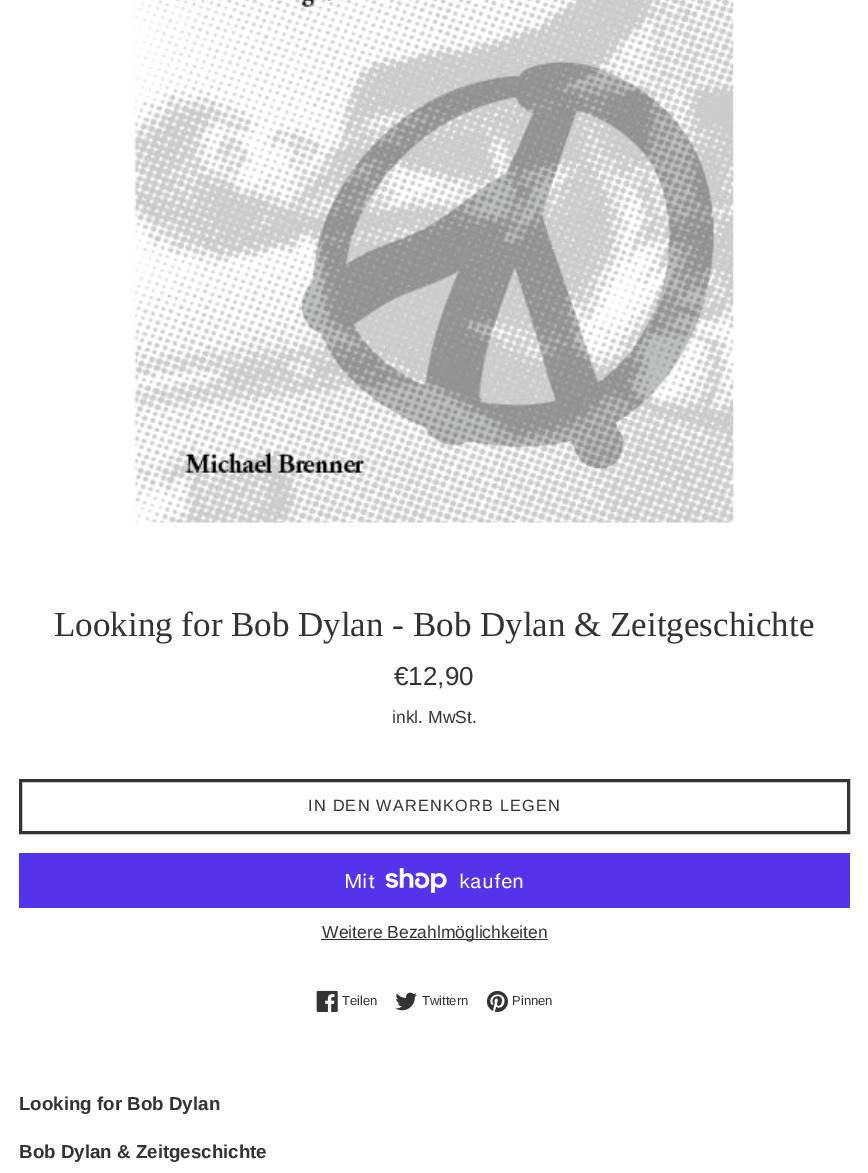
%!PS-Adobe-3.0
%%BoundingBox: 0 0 868 1173
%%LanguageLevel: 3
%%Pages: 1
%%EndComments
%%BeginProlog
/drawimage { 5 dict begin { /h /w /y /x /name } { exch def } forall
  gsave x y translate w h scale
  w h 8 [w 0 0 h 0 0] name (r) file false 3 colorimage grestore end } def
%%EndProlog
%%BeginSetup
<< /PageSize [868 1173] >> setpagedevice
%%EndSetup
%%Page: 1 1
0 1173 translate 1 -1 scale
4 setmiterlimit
1 setgray
0 0 868 1173 rectfill
(images/1.raw) 130 0 605 527 drawimage
0.2 setgray
3 setlinewidth
20.5 780.5 828 52 rectstroke
0.329 0.2 0.922 setrgbcolor
19 853 831 55 rectfill
(images/2.raw) 385 868 62 25 drawimage
0.2 setgray
321 939 227 1 rectfill
(images/3.raw) 316 990 22 22 drawimage
(images/4.raw) 395 992 22 19 drawimage
(images/5.raw) 486 990 22 22 drawimage
/LiberationSerif-Regular [35 0 0 -35 0 0] selectfont
54 636 moveto (Looking for Bob Dylan - Bob Dylan & Zeitgeschichte) show
/LiberationSans-Regular [26 0 0 -26 0 0] selectfont
394 685 moveto (€12,90) show
/LiberationSans-Regular [17.5 0 0 -17.5 0 0] selectfont
392 723 moveto (inkl. MwSt.) show
/LiberationSans-Regular [16.25 0 0 -16.25 0 0] selectfont
308 811 moveto 1.25 0 (IN DEN WARENKORB LEGEN) ashow
/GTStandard-Regular [20 0 0 -20 0 0] selectfont
1 setgray
344 888 moveto (Mit) show
459 888 moveto (kaufen) show
/LiberationSans-Regular [17.5 0 0 -17.5 0 0] selectfont
0.2 setgray
322 938 moveto (Weitere Bezahlmöglichkeiten) show
/LiberationSans-Regular [13 0 0 -13 0 0] selectfont
342 1005 moveto (Teilen) show
422 1005 moveto (Twittern) show
512 1005 moveto (Pinnen) show
/LiberationSans-Bold [18.75 0 0 -18.75 0 0] selectfont
19 1110 moveto (Looking for Bob Dylan) show
19 1158 moveto (Bob Dylan & Zeitgeschichte) show
showpage
%%EOF
